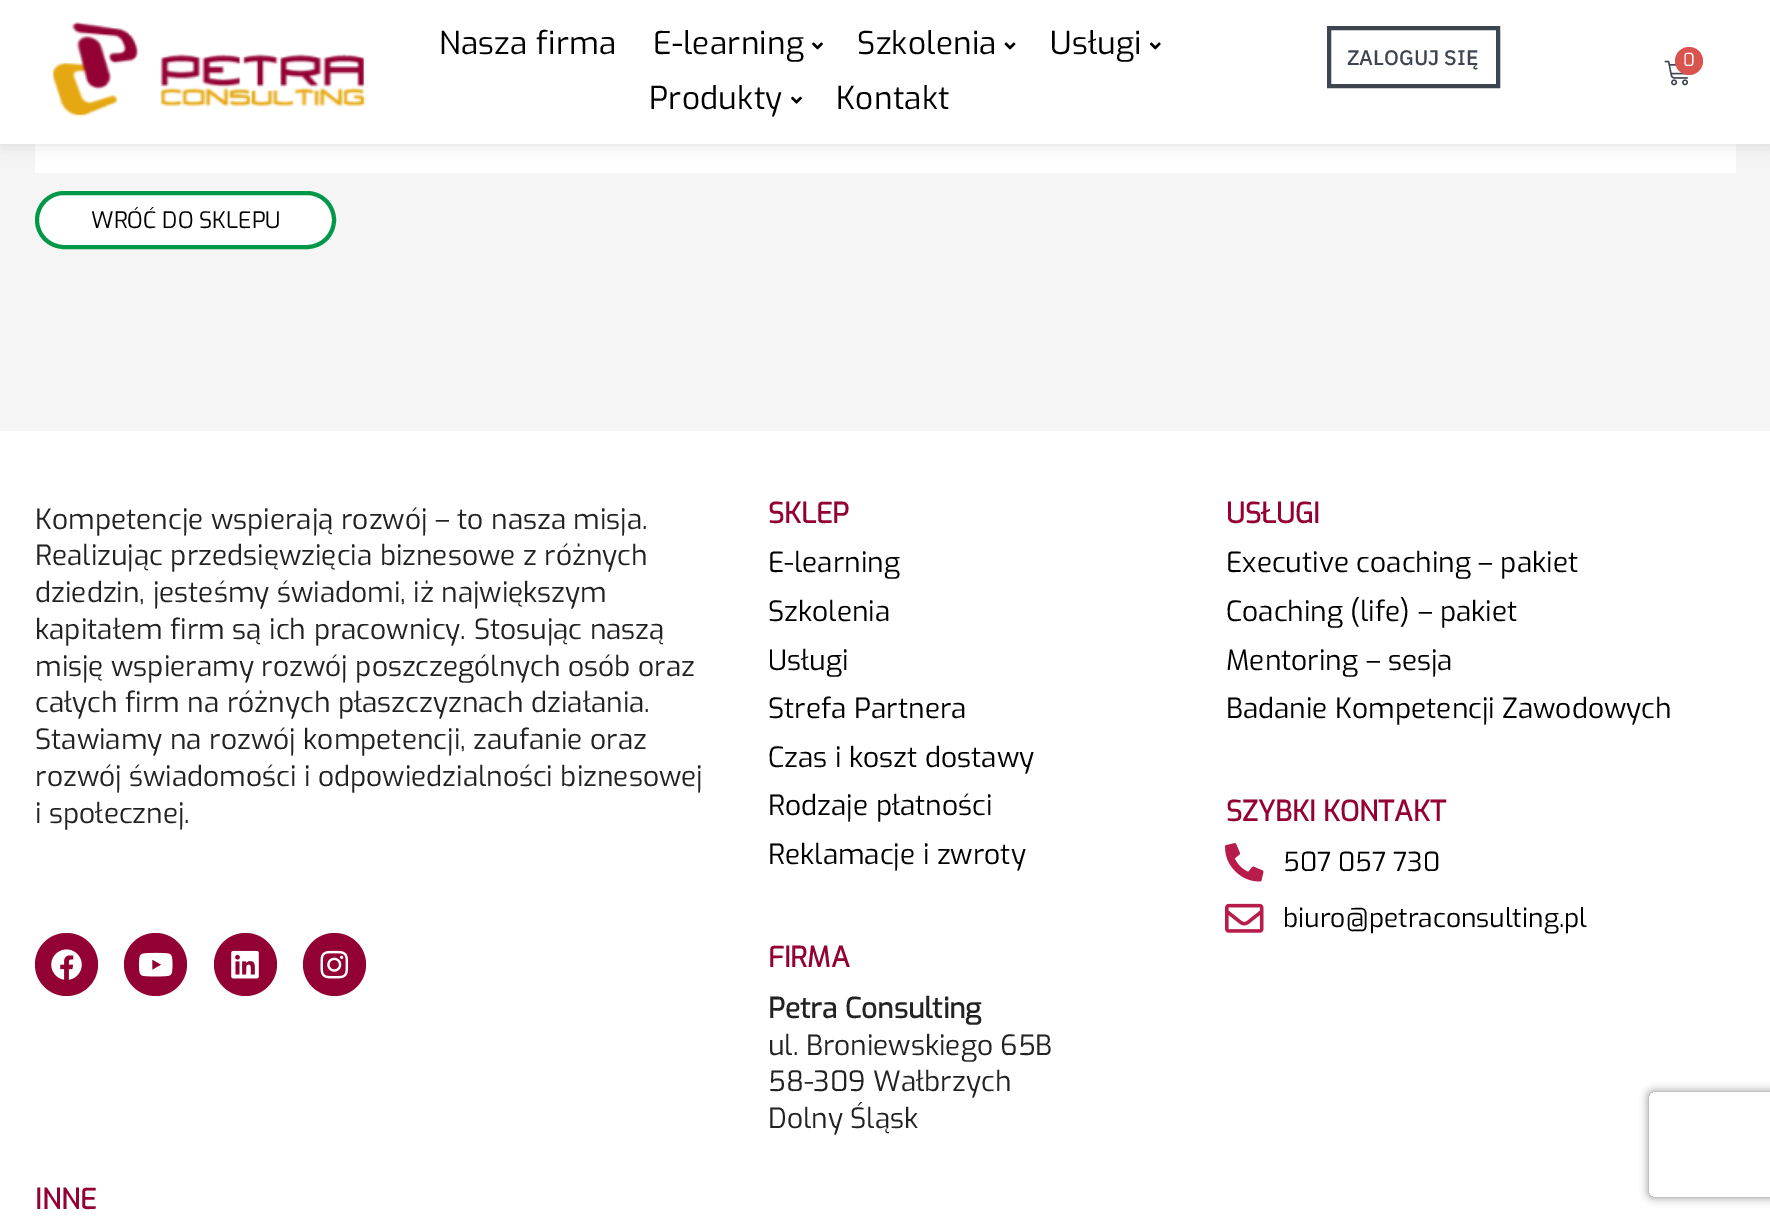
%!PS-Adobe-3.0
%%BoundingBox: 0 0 1770 1221
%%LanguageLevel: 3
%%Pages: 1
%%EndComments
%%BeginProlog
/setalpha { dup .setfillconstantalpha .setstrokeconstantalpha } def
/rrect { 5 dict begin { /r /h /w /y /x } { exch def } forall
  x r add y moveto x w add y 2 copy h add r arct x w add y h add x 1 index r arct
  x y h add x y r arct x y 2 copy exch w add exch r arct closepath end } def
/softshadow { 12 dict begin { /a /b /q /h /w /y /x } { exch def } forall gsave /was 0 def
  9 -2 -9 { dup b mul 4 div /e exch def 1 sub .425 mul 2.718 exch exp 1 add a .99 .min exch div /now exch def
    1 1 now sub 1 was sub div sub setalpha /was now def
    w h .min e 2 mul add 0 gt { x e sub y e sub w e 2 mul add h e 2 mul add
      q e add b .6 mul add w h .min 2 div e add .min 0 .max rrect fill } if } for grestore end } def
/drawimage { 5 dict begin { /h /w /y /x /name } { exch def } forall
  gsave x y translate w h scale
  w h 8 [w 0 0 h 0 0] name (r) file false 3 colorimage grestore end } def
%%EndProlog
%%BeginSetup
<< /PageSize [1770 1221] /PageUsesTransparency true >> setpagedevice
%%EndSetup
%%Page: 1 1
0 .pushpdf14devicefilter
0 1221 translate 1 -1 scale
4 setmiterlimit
1 setgray
0 0 1770 1221 rectfill
0.961 setgray
0 144 1770 287 rectfill
1 setgray
35 144 1701 29 rectfill
0 setgray
0 0 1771 144 0 9 0.14 softshadow
1 setgray
0 0 1770 144 rectfill
(images/1.raw) 51 22 315 95 drawimage
(images/2.raw) 812 42 11 8 drawimage
(images/3.raw) 1004 42 12 8 drawimage
(images/4.raw) 1149 42 12 8 drawimage
(images/5.raw) 791 96 11 8 drawimage
0.239 0.271 0.318 setrgbcolor
4 setlinewidth
1329 28 169 58 rectstroke
(images/6.raw) 1664 60 24 26 drawimage
0.851 0.325 0.31 setrgbcolor
newpath 1689 61 14 0 360 arc closepath fill
1 setgray
37 193 297 54 27 rrect gsave fill grestore
0 0.596 0.275 setrgbcolor
stroke
0.576 0 0.204 setrgbcolor
newpath 66.5 964.5 31.5 0 360 arc closepath fill
(images/7.raw) 51 949 31 31 drawimage
newpath 155.5 964.5 31.5 0 360 arc closepath fill
(images/8.raw) 138 952 35 25 drawimage
newpath 245.5 964.5 31.5 0 360 arc closepath fill
(images/9.raw) 231 950 28 29 drawimage
newpath 334.5 964.5 31.5 0 360 arc closepath fill
(images/10.raw) 320 950 29 29 drawimage
(images/11.raw) 1225 843 39 39 drawimage
(images/12.raw) 1225 903 39 30 drawimage
gsave
newpath 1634 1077 moveto 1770 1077 lineto 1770 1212 lineto 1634 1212 lineto closepath 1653 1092 moveto 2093 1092 lineto 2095 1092 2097 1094 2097 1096 curveto 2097 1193 lineto 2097 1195 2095 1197 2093 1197 curveto 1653 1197 lineto 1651 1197 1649 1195 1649 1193 curveto 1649 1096 lineto 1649 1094 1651 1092 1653 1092 curveto closepath eoclip newpath
0.502 setgray
1649 1092 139 105 4 4.5 1 softshadow
grestore
/Exo-Regular [31.5 0 0 -31.5 0 0] selectfont
0 setgray
439 54 moveto 0.3 0 (Nasza firma) ashow
653 54 moveto 0.3 0 (E-learning) ashow
857 54 moveto 0.3 0 (Szkolenia) ashow
1050 54 moveto 0.3 0 (Usługi) ashow
649 109 moveto 0.3 0 (Produkty) ashow
836 109 moveto 0.3 0 (Kontakt) ashow
/IBMPlexSans-Medium [21 0 0 -21 0 0] selectfont
0.239 0.271 0.318 setrgbcolor
1347 65 moveto (ZALOGUJ SIĘ) show
/Exo-Regular [18 0 0 -18 0 0] selectfont
1 setgray
1683 66 moveto (0) show
/Exo-Regular [22.75 0 0 -22.75 0 0] selectfont
0 setgray
91 228 moveto (WRÓĆ DO SKLEPU) show
/Exo-Regular [28 0 0 -28 0 0] selectfont
0.133 setgray
35 529 moveto (Kompetencje wspierają rozwój – to nasza misja.) show
35 565 moveto (Realizując przedsięwzięcia biznesowe z różnych) show
35 602 moveto (dziedzin, jesteśmy świadomi, iż największym) show
35 639 moveto (kapitałem firm są ich pracownicy. Stosując naszą) show
35 676 moveto (misję wspieramy rozwój poszczególnych osób oraz) show
35 712 moveto (całych firm na różnych płaszczyznach działania.) show
35 749 moveto (Stawiamy na rozwój kompetencji, zaufanie oraz) show
35 786 moveto (rozwój świadomości i odpowiedzialności biznesowej) show
35 823 moveto (i społecznej.) show
/Exo-Bold [28 0 0 -28 0 0] selectfont
0.576 0 0.204 setrgbcolor
768 523 moveto (SKLEP) show
/Exo-Regular [28 0 0 -28 0 0] selectfont
0 setgray
768 572 moveto (E-learning) show
768 621 moveto (Szkolenia) show
768 670 moveto (Usługi) show
768 718 moveto (Strefa Partnera) show
768 767 moveto (Czas i koszt dostawy) show
768 815 moveto (Rodzaje płatności) show
768 864 moveto (Reklamacje i zwroty) show
/Exo-Bold [28 0 0 -28 0 0] selectfont
0.576 0 0.204 setrgbcolor
768 967 moveto (FIRMA) show
0.133 setgray
768 1018 moveto (Petra Consulting) show
/Exo-Regular [28 0 0 -28 0 0] selectfont
768 1055 moveto (ul. Broniewskiego 65B) show
768 1091 moveto (58-309 Wałbrzych) show
768 1128 moveto (Dolny Śląsk) show
/Exo-Bold [28 0 0 -28 0 0] selectfont
0.576 0 0.204 setrgbcolor
1226 523 moveto (USŁUGI) show
/Exo-Regular [28 0 0 -28 0 0] selectfont
0 setgray
1226 572 moveto (Executive coaching – pakiet) show
1226 621 moveto (Coaching \(life\) – pakiet) show
1226 670 moveto (Mentoring – sesja) show
1226 718 moveto (Badanie Kompetencji Zawodowych) show
/Exo-Bold [28 0 0 -28 0 0] selectfont
0.576 0 0.204 setrgbcolor
1226 821 moveto (SZYBKI KONTAKT) show
/Exo-Regular [26.25 0 0 -26.25 0 0] selectfont
0 setgray
1283 871 moveto (507 057 730) show
1283 927 moveto (biuro@petraconsulting.pl) show
/Exo-Bold [28 0 0 -28 0 0] selectfont
0.576 0 0.204 setrgbcolor
35 1209 moveto (INNE) show
.poppdf14devicefilter showpage
%%EOF
